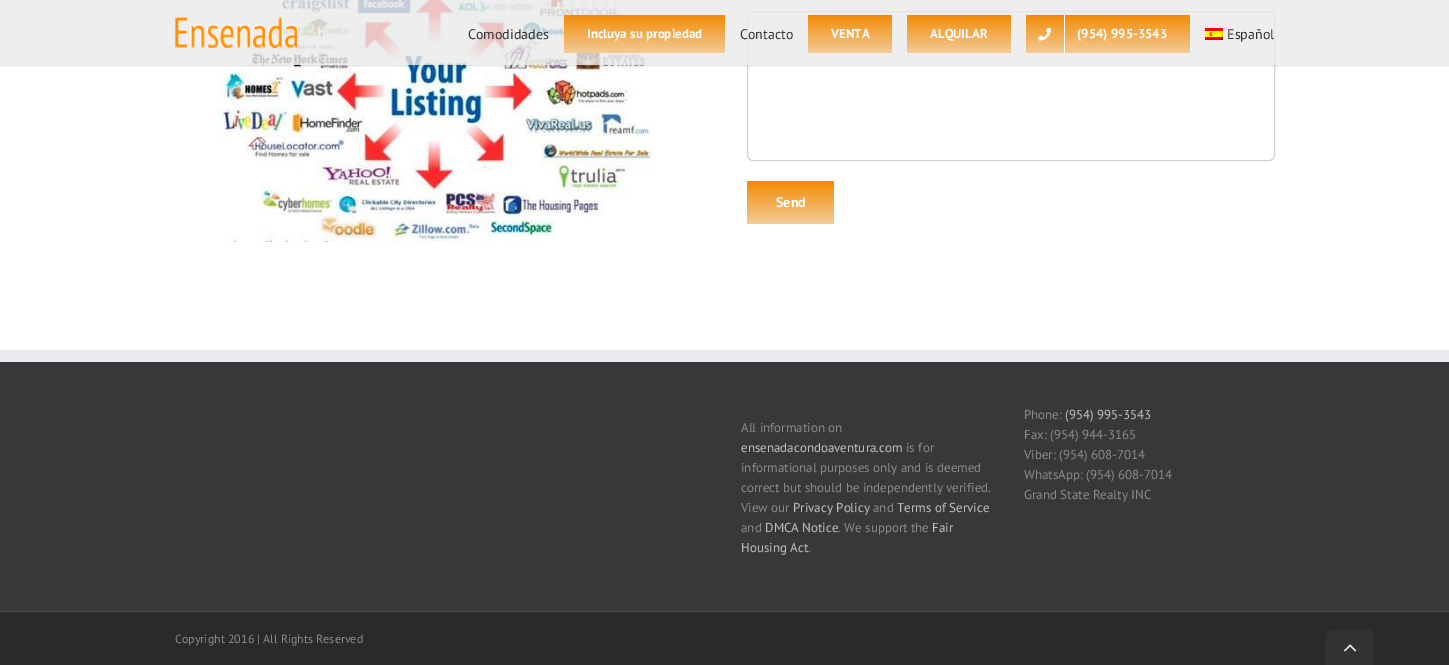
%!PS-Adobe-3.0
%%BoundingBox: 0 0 1449 665
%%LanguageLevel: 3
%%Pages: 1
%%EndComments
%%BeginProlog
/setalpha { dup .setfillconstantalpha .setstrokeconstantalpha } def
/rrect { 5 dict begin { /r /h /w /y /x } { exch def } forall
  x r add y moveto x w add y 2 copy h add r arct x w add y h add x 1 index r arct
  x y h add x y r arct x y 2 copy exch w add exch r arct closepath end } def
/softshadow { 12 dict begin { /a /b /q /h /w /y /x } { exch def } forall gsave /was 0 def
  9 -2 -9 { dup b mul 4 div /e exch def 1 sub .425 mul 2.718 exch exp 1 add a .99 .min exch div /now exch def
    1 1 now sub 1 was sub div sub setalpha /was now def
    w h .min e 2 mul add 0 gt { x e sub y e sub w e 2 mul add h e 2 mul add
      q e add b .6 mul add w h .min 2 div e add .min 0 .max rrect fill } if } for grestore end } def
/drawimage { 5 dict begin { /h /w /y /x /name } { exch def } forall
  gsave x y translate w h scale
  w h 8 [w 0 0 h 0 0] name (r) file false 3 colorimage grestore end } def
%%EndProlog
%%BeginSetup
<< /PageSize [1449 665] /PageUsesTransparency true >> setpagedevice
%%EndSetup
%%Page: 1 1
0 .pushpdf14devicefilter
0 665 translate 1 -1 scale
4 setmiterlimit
1 setgray
0 0 1449 665 rectfill
(images/4.raw) 217 0 437 242 drawimage
0.824 setgray
747.5 11.5 527 149 5.5 rrect stroke
gsave
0 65 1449 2 rectclip
0 setgray
0 1 1449 65 0 1.5 0.12 softshadow
grestore
0.8 setalpha
0.918 setgray
0 0 1449 65 rectfill
1 setalpha
(images/1.raw) 174 17 124 31 drawimage
gsave 564 15 161 38 2 rrect clip newpath
<< /ShadingType 2 /ColorSpace /DeviceRGB /Coords [645 53 645 15] /Extend [true true] /Function << /FunctionType 2 /Domain [0 1] /C0 [0.949 0.796 0.596] /C1 [0.949 0.545 0.016] /N 1 >> >> shfill grestore
gsave 808 15 84 38 2 rrect clip newpath
<< /ShadingType 2 /ColorSpace /DeviceRGB /Coords [850 53 850 15] /Extend [true true] /Function << /FunctionType 2 /Domain [0 1] /C0 [0.949 0.796 0.596] /C1 [0.949 0.545 0.016] /N 1 >> >> shfill grestore
gsave 907 15 104 38 2 rrect clip newpath
<< /ShadingType 2 /ColorSpace /DeviceRGB /Coords [959 53 959 15] /Extend [true true] /Function << /FunctionType 2 /Domain [0 1] /C0 [0.949 0.796 0.596] /C1 [0.949 0.545 0.016] /N 1 >> >> shfill grestore
gsave 1026 15 164 38 2 rrect clip newpath
<< /ShadingType 2 /ColorSpace /DeviceRGB /Coords [1108 53 1108 15] /Extend [true true] /Function << /FunctionType 2 /Domain [0 1] /C0 [0.949 0.796 0.596] /C1 [0.949 0.545 0.016] /N 1 >> >> shfill grestore
1 setgray
1064 15 1 38 rectfill
(images/2.raw) 1038 27 13 14 drawimage
(images/3.raw) 1205 28 18 12 drawimage
gsave 747 181 87 43 2 rrect clip newpath
<< /ShadingType 2 /ColorSpace /DeviceRGB /Coords [791 224 791 181] /Extend [true true] /Function << /FunctionType 2 /Domain [0 1] /C0 [0.949 0.796 0.596] /C1 [0.949 0.545 0.016] /N 1 >> >> shfill grestore
0.212 0.22 0.224 setrgbcolor
0 362 1449 249 rectfill
0.914 0.918 0.933 setrgbcolor
0 350 1449 12 rectfill
0.157 0.165 0.169 setrgbcolor
0 612 1449 53 rectfill
0.294 0.298 0.302 setrgbcolor
0 611 1449 1 rectfill
0.196 setgray
newpath 1332 630 moveto 1368 630 lineto 1371.5 630 1374 632.5 1374 636 curveto 1374 665 lineto 1326 665 lineto 1326 636 lineto 1326 632.5 1328.5 630 1332 630 curveto closepath fill
(images/5.raw) 1344 644 13 8 drawimage
/PTSans-Regular [14 0 0 -14 0 0] selectfont
0.2 setgray
468 39 moveto (Comodidades) show
/PTSans-Bold [13 0 0 -13 0 0] selectfont
1 setgray
587 38 moveto (Incluya su propiedad) show
/PTSans-Regular [14 0 0 -14 0 0] selectfont
0.2 setgray
740 39 moveto (Contacto) show
/PTSans-Bold [13 0 0 -13 0 0] selectfont
1 setgray
831 38 moveto (VENTA) show
930 38 moveto (ALQUILAR) show
1077 38 moveto (\(954\) 995-3543) show
/PTSans-Regular [14 0 0 -14 0 0] selectfont
0.2 setgray
1227 39 moveto (Español) show
/PTSans-Bold [14 0 0 -14 0 0] selectfont
1 setgray
776 207 moveto (Send) show
/PTSans-Regular [13 0 0 -13 0 0] selectfont
0.549 0.537 0.537 setrgbcolor
741 432 moveto (All information on) show
0.749 setgray
741 452 moveto (ensenadacondoaventura.com) show
0.549 0.537 0.537 setrgbcolor
906 452 moveto (is for) show
741 472 moveto (informational purposes only and is deemed) show
741 492 moveto (correct but should be independently verified.) show
741 512 moveto (View our) show
0.749 setgray
793 512 moveto (Privacy Policy) show
0.549 0.537 0.537 setrgbcolor
873 512 moveto (and) show
0.749 setgray
897 512 moveto (Terms of Service) show
0.549 0.537 0.537 setrgbcolor
741 532 moveto (and) show
0.749 setgray
765 532 moveto (DMCA Notice) show
0.549 0.537 0.537 setrgbcolor
838 532 moveto (. We support the) show
0.749 setgray
932 532 moveto (Fair) show
741 552 moveto (Housing Act) show
0.549 0.537 0.537 setrgbcolor
808 552 moveto (.) show
1024 419 moveto (Phone:) show
0.749 setgray
1065 419 moveto (\(954\) 995-3543) show
0.549 0.537 0.537 setrgbcolor
1024 439 moveto (Fax: \(954\) 944-3165) show
1024 459 moveto (Viber: \(954\) 608-7014) show
1024 479 moveto (WhatsApp: \(954\) 608-7014) show
1024 499 moveto (Grand State Realty INC) show
/PTSans-Regular [12 0 0 -12 0 0] selectfont
175 643 moveto (Copyright 2016 | All Rights Reserved) show
.poppdf14devicefilter showpage
%%EOF
